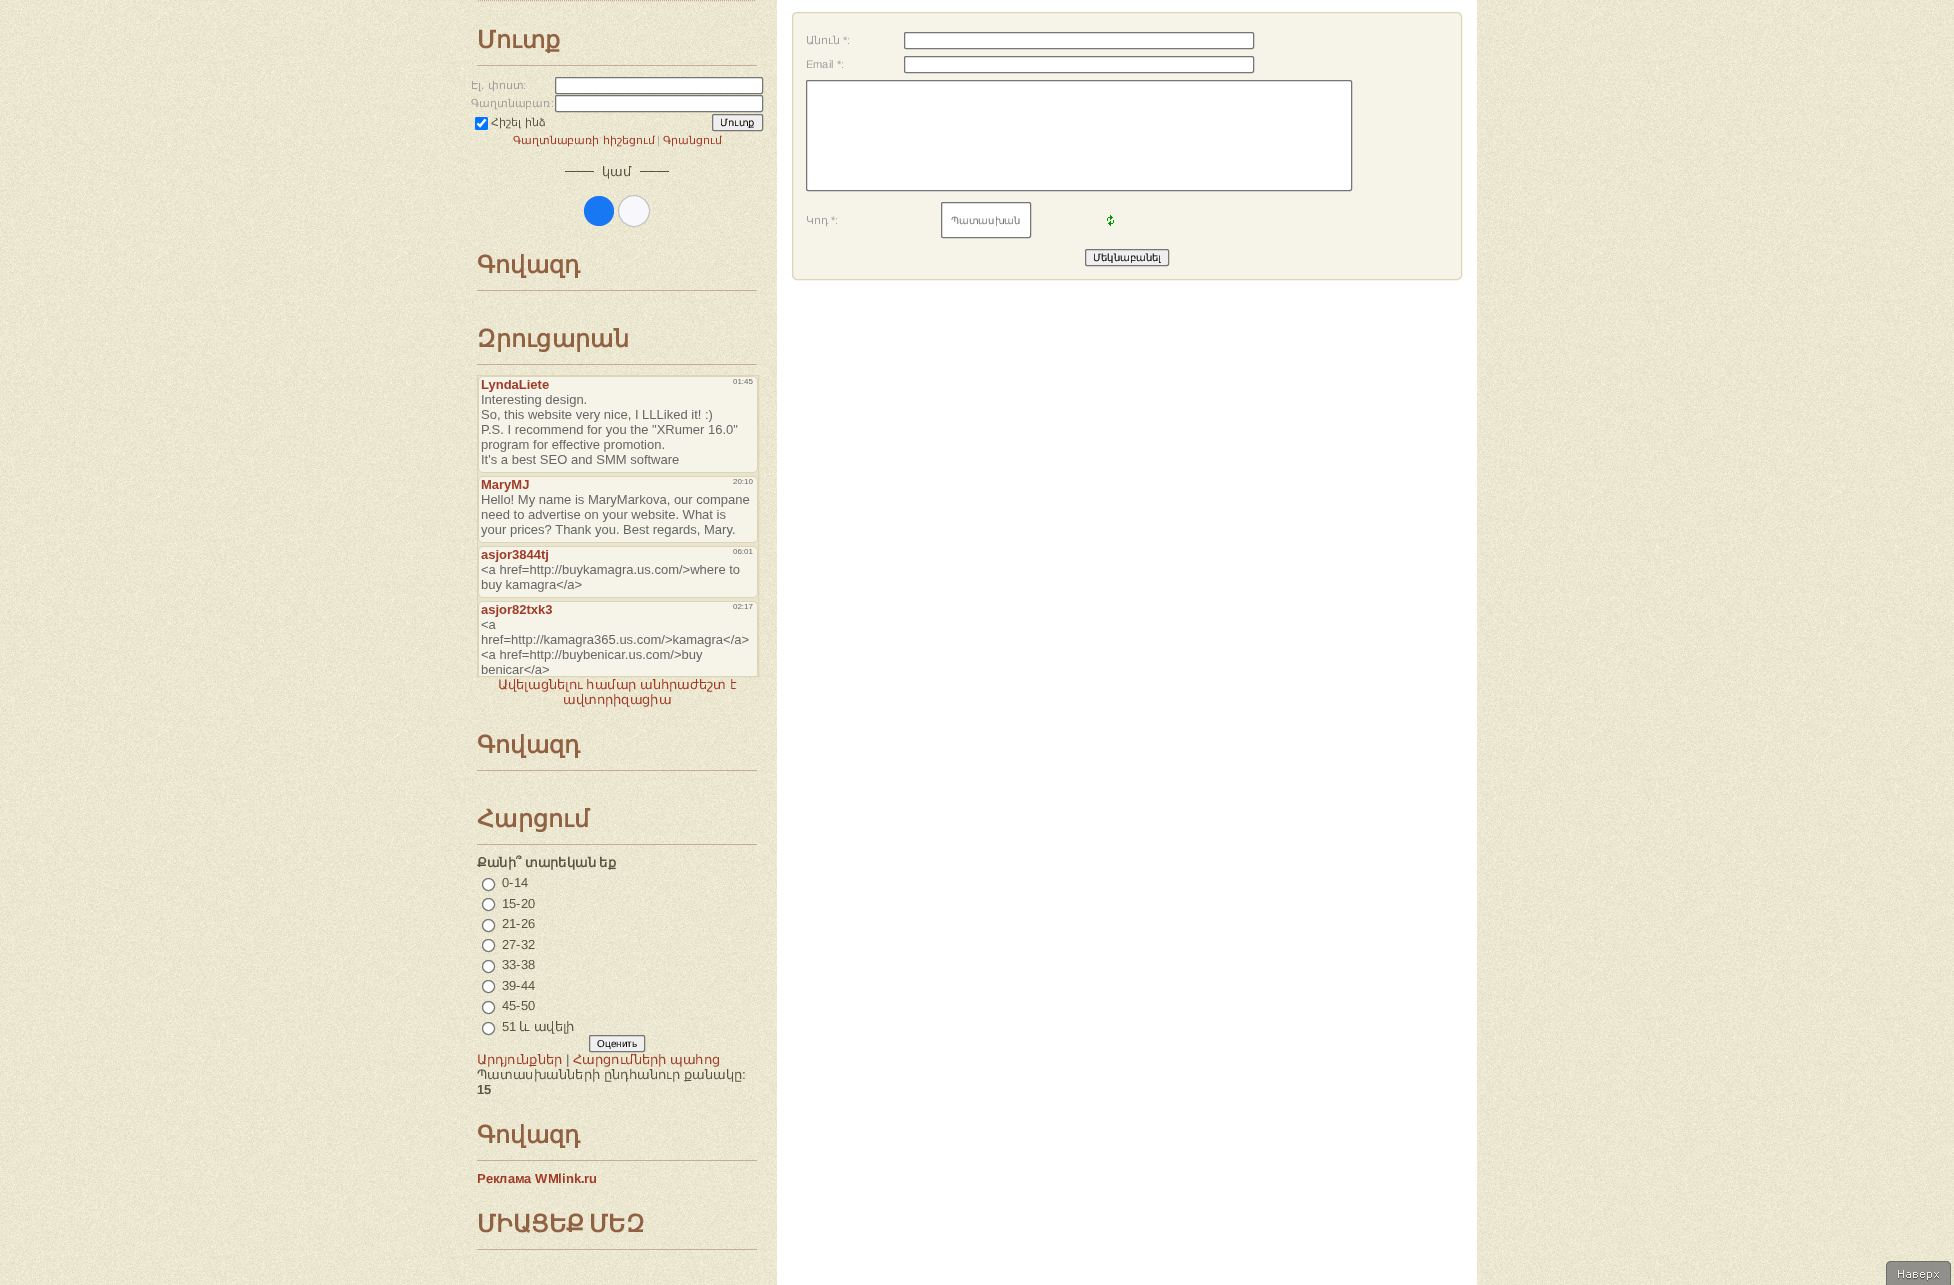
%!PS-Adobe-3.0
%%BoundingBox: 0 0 1954 1285
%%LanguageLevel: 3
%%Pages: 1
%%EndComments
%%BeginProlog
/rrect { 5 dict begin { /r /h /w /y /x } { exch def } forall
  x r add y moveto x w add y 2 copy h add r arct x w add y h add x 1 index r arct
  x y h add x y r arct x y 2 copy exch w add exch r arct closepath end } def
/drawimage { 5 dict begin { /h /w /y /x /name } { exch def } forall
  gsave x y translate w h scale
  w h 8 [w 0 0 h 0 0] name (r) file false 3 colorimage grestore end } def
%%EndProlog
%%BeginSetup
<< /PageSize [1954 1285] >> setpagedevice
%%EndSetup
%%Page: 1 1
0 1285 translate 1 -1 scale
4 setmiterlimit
1 setgray
0 0 1954 1285 rectfill
(images/1.raw) 0 0 1954 1285 drawimage
777 0 700 1285 rectfill
0.773 0.671 0.604 setrgbcolor
[1 1] 0 setdash
newpath 478 0.5 moveto 756 0.5 lineto stroke
477 65 280 1 rectfill
1 setgray
555.5 77.5 207 16 1.5 rrect gsave fill grestore
0.463 setgray
[] 0 setdash
stroke
1 setgray
555.5 95.5 207 16 1.5 rrect gsave fill grestore
0.463 setgray
stroke
0 0.459 1 setrgbcolor
475 117 13 13 2 rrect fill
1 setgray
2.1 setlinewidth
newpath 477.5 123.5 moveto 480 126 lineto 485.5 119.5 lineto stroke
0.937 setgray
712.5 114.5 50 16 1.5 rrect gsave fill grestore
0.463 setgray
1 setlinewidth
stroke
0.349 0.333 0.263 setrgbcolor
565 171 29 1 rectfill
640 171 29 1 rectfill
0.094 0.467 0.949 setrgbcolor
newpath 599 211 15 0 360 arc closepath fill
0.973 0.973 0.988 setrgbcolor
newpath 634 211 15.5 0 360 arc closepath gsave fill grestore
0.769 setgray
stroke
0.773 0.671 0.604 setrgbcolor
477 290 280 1 rectfill
477 364 280 1 rectfill
0.863 0.835 0.714 setrgbcolor
477.5 375.5 281 301 rectstroke
(images/2.raw) 478 376 280 300 drawimage
0.773 0.671 0.604 setrgbcolor
477 770 280 1 rectfill
477 844 280 1 rectfill
1 setgray
newpath 488.5 884.5 6 0 360 arc closepath gsave fill grestore
0.463 setgray
stroke
1 setgray
newpath 488.5 904.5 6 0 360 arc closepath gsave fill grestore
0.463 setgray
stroke
1 setgray
newpath 488.5 925.5 6 0 360 arc closepath gsave fill grestore
0.463 setgray
stroke
1 setgray
newpath 488.5 945.5 6 0 360 arc closepath gsave fill grestore
0.463 setgray
stroke
1 setgray
newpath 488.5 966.5 6 0 360 arc closepath gsave fill grestore
0.463 setgray
stroke
1 setgray
newpath 488.5 986.5 6 0 360 arc closepath gsave fill grestore
0.463 setgray
stroke
1 setgray
newpath 488.5 1007.5 6 0 360 arc closepath gsave fill grestore
0.463 setgray
stroke
1 setgray
newpath 488.5 1028.5 6 0 360 arc closepath gsave fill grestore
0.463 setgray
stroke
0.937 setgray
589.5 1035.5 55 16 1.5 rrect gsave fill grestore
0.463 setgray
stroke
0.773 0.671 0.604 setrgbcolor
477 1160 280 1 rectfill
477 1249 280 1 rectfill
0.965 0.957 0.914 setrgbcolor
792.5 12.5 669 267 4.5 rrect gsave fill grestore
0.863 0.835 0.714 setrgbcolor
stroke
1 setgray
904.5 32.5 349 16 1.5 rrect gsave fill grestore
0.463 setgray
stroke
1 setgray
904.5 56.5 349 16 1.5 rrect gsave fill grestore
0.463 setgray
stroke
1 setgray
806.5 80.5 545 110 1.5 rrect gsave fill grestore
0.463 setgray
stroke
1 setgray
941.5 202.5 89 35 1.5 rrect gsave fill grestore
0.463 setgray
stroke
(images/3.raw) 1107 215 7 11 drawimage
0.937 setgray
1085.5 249.5 83 16 1.5 rrect gsave fill grestore
0.463 setgray
stroke
(images/4.raw) 1886 1261 65 24 drawimage
/DejaVuSans-Bold [24 0 0 -24 0 0] selectfont
0.565 0.38 0.259 setrgbcolor
477 48 moveto (Մուտք) show
/DejaVuSans-Regular [11 0 0 -11 0 0] selectfont
0.624 setgray
471 89 moveto (Էլ) show
/LiberationSans-Regular [11 0 0 -11 0 0] selectfont
481 89 moveto (.) show
/DejaVuSans-Regular [11 0 0 -11 0 0] selectfont
488 89 moveto (փոստ) show
/LiberationSans-Regular [11 0 0 -11 0 0] selectfont
523 89 moveto (:) show
/DejaVuSans-Regular [11 0 0 -11 0 0] selectfont
471 107 moveto (Գաղտնաբառ) show
/LiberationSans-Regular [11 0 0 -11 0 0] selectfont
551 107 moveto (:) show
/DejaVuSans-Regular [11 0 0 -11 0 0] selectfont
0.349 0.333 0.263 setrgbcolor
491 126 moveto (Հիշել ինձ) show
/DejaVuSans-Regular [10 0 0 -10 0 0] selectfont
0 setgray
720 126 moveto (Մուտք) show
/DejaVuSans-Regular [11 0 0 -11 0 0] selectfont
0.624 0.231 0.153 setrgbcolor
513 144 moveto (Գաղտնաբառի հիշեցում) show
/LiberationSans-Regular [11 0 0 -11 0 0] selectfont
0.624 setgray
657 144 moveto (|) show
/DejaVuSans-Regular [11 0 0 -11 0 0] selectfont
0.624 0.231 0.153 setrgbcolor
663 144 moveto (Գրանցում) show
/DejaVuSans-Regular [13 0 0 -13 0 0] selectfont
0.349 0.333 0.263 setrgbcolor
602 176 moveto (կամ) show
/DejaVuSans-Bold [24 0 0 -24 0 0] selectfont
0.565 0.38 0.259 setrgbcolor
477 273 moveto (Գովազդ) show
477 347 moveto (Զրուցարան) show
/DejaVuSans-Regular [13 0 0 -13 0 0] selectfont
0.624 0.231 0.153 setrgbcolor
498 689 moveto -0.5 0 32 (Ավելացնելու համար անհրաժեշտ է) widthshow
563 704 moveto (ավտորիզացիա) show
/DejaVuSans-Bold [24 0 0 -24 0 0] selectfont
0.565 0.38 0.259 setrgbcolor
477 753 moveto (Գովազդ) show
477 827 moveto (Հարցում) show
/DejaVuSans-Bold [13 0 0 -13 0 0] selectfont
0.349 0.333 0.263 setrgbcolor
477 867 moveto -0.5 0 32 (Քանի՞ տարեկան եք) widthshow
/LiberationSans-Regular [13 0 0 -13 0 0] selectfont
502 887 moveto (0-14) show
502 908 moveto (15-20) show
502 928 moveto (21-26) show
502 949 moveto (27-32) show
502 969 moveto (33-38) show
502 990 moveto (39-44) show
502 1010 moveto (45-50) show
502 1031 moveto (51) show
/DejaVuSans-Regular [13 0 0 -13 0 0] selectfont
519 1031 moveto (և ավելի) show
/LiberationSans-Regular [10 0 0 -10 0 0] selectfont
0 setgray
597 1047 moveto (Оценить) show
/DejaVuSans-Regular [13 0 0 -13 0 0] selectfont
0.624 0.231 0.153 setrgbcolor
477 1064 moveto (Արդյունքներ) show
/LiberationSans-Regular [13 0 0 -13 0 0] selectfont
0.349 0.333 0.263 setrgbcolor
566 1064 moveto (|) show
/DejaVuSans-Regular [13 0 0 -13 0 0] selectfont
0.624 0.231 0.153 setrgbcolor
573 1064 moveto -0.5 0 32 (Հարցումների պահոց) widthshow
0.349 0.333 0.263 setrgbcolor
477 1079 moveto -0.5 0 32 (Պատասխանների ընդհանուր քանակը) widthshow
/LiberationSans-Regular [13 0 0 -13 0 0] selectfont
742 1079 moveto (:) show
/LiberationSans-Bold [13 0 0 -13 0 0] selectfont
477 1094 moveto (15) show
/DejaVuSans-Bold [24 0 0 -24 0 0] selectfont
0.565 0.38 0.259 setrgbcolor
477 1143 moveto (Գովազդ) show
/LiberationSans-Bold [13 0 0 -13 0 0] selectfont
0.624 0.231 0.153 setrgbcolor
477 1183 moveto (Реклама WMlink.ru) show
/DejaVuSans-Bold [24 0 0 -24 0 0] selectfont
0.565 0.38 0.259 setrgbcolor
477 1232 moveto -3 0 32 (ՄԻԱՑԵՔ ՄԵԶ) widthshow
/DejaVuSans-Regular [11 0 0 -11 0 0] selectfont
0.624 setgray
806 44 moveto (Անուն) show
/LiberationSans-Regular [11 0 0 -11 0 0] selectfont
843 44 moveto (*:) show
806 68 moveto (Email *:) show
/DejaVuSans-Regular [11 0 0 -11 0 0] selectfont
806 224 moveto (Կոդ) show
/LiberationSans-Regular [11 0 0 -11 0 0] selectfont
831 224 moveto (*:) show
/DejaVuSans-Regular [10 0 0 -10 0 0] selectfont
0.459 setgray
951 224 moveto (Պատասխան) show
0 setgray
1093 261 moveto (Մեկնաբանել) show
showpage
%%EOF
